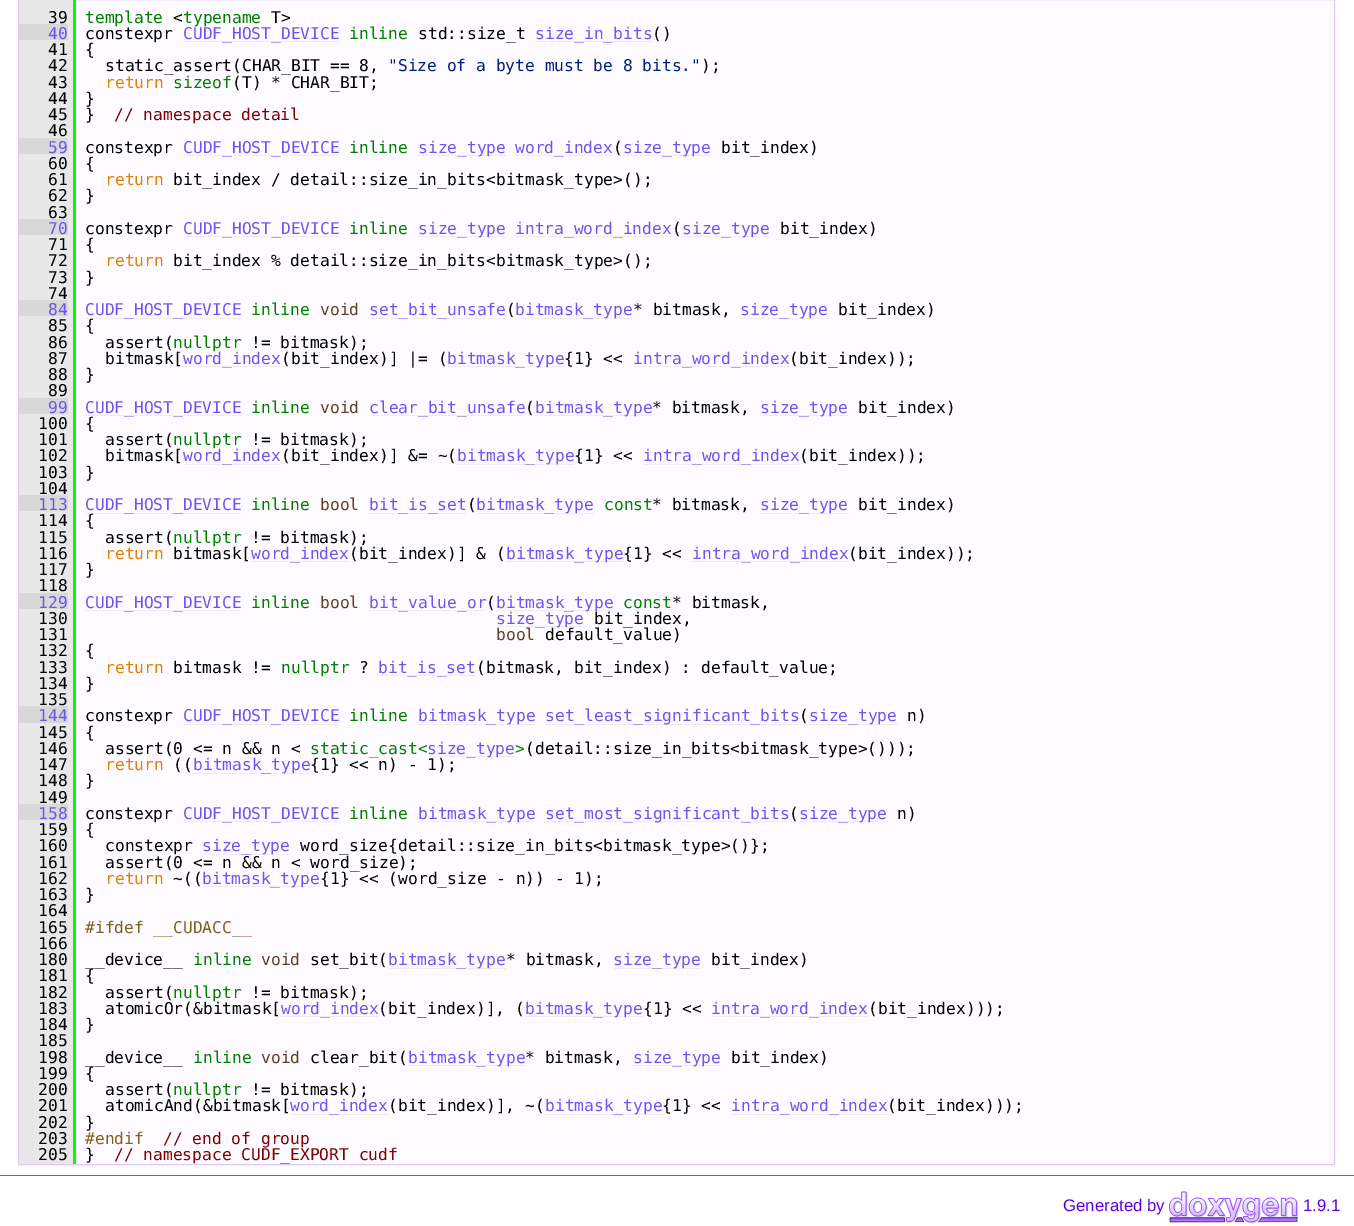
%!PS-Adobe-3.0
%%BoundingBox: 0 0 1354 1226
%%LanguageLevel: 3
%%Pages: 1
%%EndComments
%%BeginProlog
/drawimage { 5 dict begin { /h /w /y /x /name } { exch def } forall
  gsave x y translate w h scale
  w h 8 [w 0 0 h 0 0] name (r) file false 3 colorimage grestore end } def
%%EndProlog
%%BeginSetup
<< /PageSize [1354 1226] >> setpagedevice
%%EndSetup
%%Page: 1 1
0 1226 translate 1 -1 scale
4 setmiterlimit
1 setgray
0 0 1354 1226 rectfill
0.992 0.984 1 setrgbcolor
76 0 1258 1164 rectfill
0.875 0.78 0.996 setrgbcolor
18.5 -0.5 1316 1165 rectstroke
0.91 setgray
19 0 54 24 rectfill
0 1 0 setrgbcolor
73 0 3 611 rectfill
0.91 setgray
68 24 5 16 rectfill
0.847 setgray
19 24 49 16 rectfill
0.933 0.922 0.933 setrgbcolor
183 41 156 1 rectfill
535 41 118 1 rectfill
0.91 setgray
19 40 54 98 rectfill
68 138 5 16 rectfill
0.847 setgray
19 138 49 16 rectfill
0.933 0.922 0.933 setrgbcolor
183 155 156 1 rectfill
418 155 88 1 rectfill
515 155 99 1 rectfill
623 155 88 1 rectfill
0.91 setgray
19 154 54 65 rectfill
68 219 5 16 rectfill
0.847 setgray
19 219 49 16 rectfill
0.933 0.922 0.933 setrgbcolor
183 236 156 1 rectfill
418 236 88 1 rectfill
515 236 158 1 rectfill
681 236 89 1 rectfill
0.91 setgray
19 235 54 65 rectfill
68 300 5 16 rectfill
0.847 setgray
19 300 49 16 rectfill
0.933 0.922 0.933 setrgbcolor
85 318 156 1 rectfill
369 318 137 1 rectfill
515 318 118 1 rectfill
740 318 89 1 rectfill
0.91 setgray
19 316 54 82 rectfill
0.933 0.922 0.933 setrgbcolor
183 366 98 1 rectfill
448 366 117 1 rectfill
633 366 157 1 rectfill
0.91 setgray
68 398 5 16 rectfill
0.847 setgray
19 398 49 16 rectfill
0.933 0.922 0.933 setrgbcolor
85 415 156 1 rectfill
369 415 156 1 rectfill
535 415 118 1 rectfill
760 415 89 1 rectfill
0.91 setgray
19 414 54 81 rectfill
0.933 0.922 0.933 setrgbcolor
183 464 98 1 rectfill
456 464 118 1 rectfill
643 464 156 1 rectfill
0.91 setgray
68 495 5 16 rectfill
0.847 setgray
19 495 49 16 rectfill
0.933 0.922 0.933 setrgbcolor
85 513 156 1 rectfill
369 513 97 1 rectfill
476 513 118 1 rectfill
760 513 89 1 rectfill
0.91 setgray
19 511 54 82 rectfill
0.933 0.922 0.933 setrgbcolor
251 561 98 1 rectfill
506 561 117 1 rectfill
691 561 158 1 rectfill
0.91 setgray
68 593 5 16 rectfill
0.847 setgray
19 593 49 16 rectfill
0.933 0.922 0.933 setrgbcolor
85 610 156 1 rectfill
369 610 117 1 rectfill
496 610 118 1 rectfill
0.91 setgray
19 609 54 97 rectfill
0 1 0 setrgbcolor
73 609 3 555 rectfill
0.933 0.922 0.933 setrgbcolor
496 626 88 1 rectfill
379 675 97 1 rectfill
0.91 setgray
68 706 5 17 rectfill
0.847 setgray
19 706 49 17 rectfill
0.933 0.922 0.933 setrgbcolor
183 724 156 1 rectfill
418 724 117 1 rectfill
545 724 254 1 rectfill
809 724 89 1 rectfill
0.91 setgray
19 723 54 81 rectfill
0.933 0.922 0.933 setrgbcolor
428 756 87 1 rectfill
193 773 117 1 rectfill
0.91 setgray
68 804 5 16 rectfill
0.847 setgray
19 804 49 16 rectfill
0.933 0.922 0.933 setrgbcolor
183 821 156 1 rectfill
418 821 117 1 rectfill
545 821 245 1 rectfill
799 821 89 1 rectfill
0.91 setgray
19 820 54 344 rectfill
0.933 0.922 0.933 setrgbcolor
203 854 87 1 rectfill
203 886 117 1 rectfill
389 968 117 1 rectfill
614 968 87 1 rectfill
281 1016 98 1 rectfill
525 1016 118 1 rectfill
711 1016 157 1 rectfill
408 1065 117 1 rectfill
633 1065 88 1 rectfill
290 1114 99 1 rectfill
545 1114 118 1 rectfill
731 1114 157 1 rectfill
0.569 0.239 0.996 setrgbcolor
0 1175 1354 1 rectfill
(images/1.raw) 1169 1191 130 33 drawimage
/DejaVuSansMono-Regular [16.25 0 0 -16.25 0 0] selectfont
0 setgray
48 23 moveto (39) show
0 0.502 0 setrgbcolor
85 23 moveto (template) show
0 setgray
173 23 moveto (<) show
0 0.502 0 setrgbcolor
183 23 moveto (typename) show
0 setgray
271 23 moveto (T>) show
0.447 0.325 0.929 setrgbcolor
48 39 moveto (40) show
0 setgray
85 39 moveto (constexpr) show
0.447 0.325 0.929 setrgbcolor
183 39 moveto (CUDF_HOST_DEVICE) show
0 0.502 0 setrgbcolor
349 39 moveto (inline) show
0 setgray
418 39 moveto (std::size_t) show
0.447 0.325 0.929 setrgbcolor
535 39 moveto (size_in_bits) show
0 setgray
652 39 moveto (\(\)) show
48 55 moveto (41) show
85 55 moveto ({) show
48 71 moveto (42) show
105 71 moveto (static_assert\(CHAR_BIT == 8,) show
0 0.125 0.502 setrgbcolor
388 71 moveto ("Size of a byte must be 8 bits.") show
0 setgray
701 71 moveto (\);) show
48 88 moveto (43) show
0.878 0.502 0 setrgbcolor
105 88 moveto (return) show
0 0.502 0 setrgbcolor
173 88 moveto (sizeof) show
0 setgray
232 88 moveto (\(T\) * CHAR_BIT;) show
48 104 moveto (44) show
85 104 moveto (}) show
48 120 moveto (45) show
85 120 moveto (}) show
0.502 0 0 setrgbcolor
114 120 moveto (// namespace detail) show
0 setgray
48 136 moveto (46) show
0.447 0.325 0.929 setrgbcolor
48 153 moveto (59) show
0 setgray
85 153 moveto (constexpr) show
0.447 0.325 0.929 setrgbcolor
183 153 moveto (CUDF_HOST_DEVICE) show
0 0.502 0 setrgbcolor
349 153 moveto (inline) show
0.447 0.325 0.929 setrgbcolor
418 153 moveto (size_type) show
515 153 moveto (word_index) show
0 setgray
613 153 moveto (\() show
0.447 0.325 0.929 setrgbcolor
623 153 moveto (size_type) show
0 setgray
721 153 moveto (bit_index\)) show
48 169 moveto (60) show
85 169 moveto ({) show
48 185 moveto (61) show
0.878 0.502 0 setrgbcolor
105 185 moveto (return) show
0 setgray
173 185 moveto (bit_index / detail::size_in_bits<bitmask_type>\(\);) show
48 201 moveto (62) show
85 201 moveto (}) show
48 218 moveto (63) show
0.447 0.325 0.929 setrgbcolor
48 234 moveto (70) show
0 setgray
85 234 moveto (constexpr) show
0.447 0.325 0.929 setrgbcolor
183 234 moveto (CUDF_HOST_DEVICE) show
0 0.502 0 setrgbcolor
349 234 moveto (inline) show
0.447 0.325 0.929 setrgbcolor
418 234 moveto (size_type) show
515 234 moveto (intra_word_index) show
0 setgray
672 234 moveto (\() show
0.447 0.325 0.929 setrgbcolor
682 234 moveto (size_type) show
0 setgray
780 234 moveto (bit_index\)) show
48 250 moveto (71) show
85 250 moveto ({) show
48 266 moveto (72) show
0.878 0.502 0 setrgbcolor
105 266 moveto (return) show
0 setgray
173 266 moveto (bit_index % detail::size_in_bits<bitmask_type>\(\);) show
48 283 moveto (73) show
85 283 moveto (}) show
48 299 moveto (74) show
0.447 0.325 0.929 setrgbcolor
48 315 moveto (84) show
85 315 moveto (CUDF_HOST_DEVICE) show
0 0.502 0 setrgbcolor
251 315 moveto (inline) show
0.376 0.251 0.125 setrgbcolor
320 315 moveto (void) show
0.447 0.325 0.929 setrgbcolor
369 315 moveto (set_bit_unsafe) show
0 setgray
506 315 moveto (\() show
0.447 0.325 0.929 setrgbcolor
515 315 moveto (bitmask_type) show
0 setgray
633 315 moveto (* bitmask,) show
0.447 0.325 0.929 setrgbcolor
740 315 moveto (size_type) show
0 setgray
838 315 moveto (bit_index\)) show
48 331 moveto (85) show
85 331 moveto ({) show
48 348 moveto (86) show
105 348 moveto (assert\() show
0 0.502 0 setrgbcolor
173 348 moveto (nullptr) show
0 setgray
251 348 moveto (!= bitmask\);) show
48 364 moveto (87) show
105 364 moveto (bitmask[) show
0.447 0.325 0.929 setrgbcolor
183 364 moveto (word_index) show
0 setgray
281 364 moveto (\(bit_index\)] |= \() show
0.447 0.325 0.929 setrgbcolor
447 364 moveto (bitmask_type) show
0 setgray
564 364 moveto ({1} <<) show
0.447 0.325 0.929 setrgbcolor
633 364 moveto (intra_word_index) show
0 setgray
789 364 moveto (\(bit_index\)\);) show
48 380 moveto (88) show
85 380 moveto (}) show
48 396 moveto (89) show
0.447 0.325 0.929 setrgbcolor
48 413 moveto (99) show
85 413 moveto (CUDF_HOST_DEVICE) show
0 0.502 0 setrgbcolor
251 413 moveto (inline) show
0.376 0.251 0.125 setrgbcolor
320 413 moveto (void) show
0.447 0.325 0.929 setrgbcolor
369 413 moveto (clear_bit_unsafe) show
0 setgray
525 413 moveto (\() show
0.447 0.325 0.929 setrgbcolor
535 413 moveto (bitmask_type) show
0 setgray
652 413 moveto (* bitmask,) show
0.447 0.325 0.929 setrgbcolor
760 413 moveto (size_type) show
0 setgray
858 413 moveto (bit_index\)) show
38 429 moveto (100) show
85 429 moveto ({) show
38 445 moveto (101) show
105 445 moveto (assert\() show
0 0.502 0 setrgbcolor
173 445 moveto (nullptr) show
0 setgray
251 445 moveto (!= bitmask\);) show
38 461 moveto (102) show
105 461 moveto (bitmask[) show
0.447 0.325 0.929 setrgbcolor
183 461 moveto (word_index) show
0 setgray
281 461 moveto (\(bit_index\)] &= ~\() show
0.447 0.325 0.929 setrgbcolor
457 461 moveto (bitmask_type) show
0 setgray
574 461 moveto ({1} <<) show
0.447 0.325 0.929 setrgbcolor
643 461 moveto (intra_word_index) show
0 setgray
799 461 moveto (\(bit_index\)\);) show
38 478 moveto (103) show
85 478 moveto (}) show
38 494 moveto (104) show
0.447 0.325 0.929 setrgbcolor
38 510 moveto (113) show
85 510 moveto (CUDF_HOST_DEVICE) show
0 0.502 0 setrgbcolor
251 510 moveto (inline) show
0.376 0.251 0.125 setrgbcolor
320 510 moveto (bool) show
0.447 0.325 0.929 setrgbcolor
369 510 moveto (bit_is_set) show
0 setgray
467 510 moveto (\() show
0.447 0.325 0.929 setrgbcolor
476 510 moveto (bitmask_type) show
0 0.502 0 setrgbcolor
604 510 moveto (const) show
0 setgray
652 510 moveto (* bitmask,) show
0.447 0.325 0.929 setrgbcolor
760 510 moveto (size_type) show
0 setgray
858 510 moveto (bit_index\)) show
38 526 moveto (114) show
85 526 moveto ({) show
38 543 moveto (115) show
105 543 moveto (assert\() show
0 0.502 0 setrgbcolor
173 543 moveto (nullptr) show
0 setgray
251 543 moveto (!= bitmask\);) show
38 559 moveto (116) show
0.878 0.502 0 setrgbcolor
105 559 moveto (return) show
0 setgray
173 559 moveto (bitmask[) show
0.447 0.325 0.929 setrgbcolor
251 559 moveto (word_index) show
0 setgray
349 559 moveto (\(bit_index\)] & \() show
0.447 0.325 0.929 setrgbcolor
506 559 moveto (bitmask_type) show
0 setgray
623 559 moveto ({1} <<) show
0.447 0.325 0.929 setrgbcolor
692 559 moveto (intra_word_index) show
0 setgray
848 559 moveto (\(bit_index\)\);) show
38 575 moveto (117) show
85 575 moveto (}) show
38 591 moveto (118) show
0.447 0.325 0.929 setrgbcolor
38 608 moveto (129) show
85 608 moveto (CUDF_HOST_DEVICE) show
0 0.502 0 setrgbcolor
251 608 moveto (inline) show
0.376 0.251 0.125 setrgbcolor
320 608 moveto (bool) show
0.447 0.325 0.929 setrgbcolor
369 608 moveto (bit_value_or) show
0 setgray
486 608 moveto (\() show
0.447 0.325 0.929 setrgbcolor
496 608 moveto (bitmask_type) show
0 0.502 0 setrgbcolor
623 608 moveto (const) show
0 setgray
672 608 moveto (* bitmask,) show
38 624 moveto (130) show
0.447 0.325 0.929 setrgbcolor
496 624 moveto (size_type) show
0 setgray
594 624 moveto (bit_index,) show
38 640 moveto (131) show
0.376 0.251 0.125 setrgbcolor
496 640 moveto (bool) show
0 setgray
545 640 moveto (default_value\)) show
38 656 moveto (132) show
85 656 moveto ({) show
38 673 moveto (133) show
0.878 0.502 0 setrgbcolor
105 673 moveto (return) show
0 setgray
173 673 moveto (bitmask !=) show
0 0.502 0 setrgbcolor
281 673 moveto (nullptr) show
0 setgray
359 673 moveto (?) show
0.447 0.325 0.929 setrgbcolor
378 673 moveto (bit_is_set) show
0 setgray
476 673 moveto (\(bitmask, bit_index\) : default_value;) show
38 689 moveto (134) show
85 689 moveto (}) show
38 705 moveto (135) show
0.447 0.325 0.929 setrgbcolor
38 721 moveto (144) show
0 setgray
85 721 moveto (constexpr) show
0.447 0.325 0.929 setrgbcolor
183 721 moveto (CUDF_HOST_DEVICE) show
0 0.502 0 setrgbcolor
349 721 moveto (inline) show
0.447 0.325 0.929 setrgbcolor
418 721 moveto (bitmask_type) show
545 721 moveto (set_least_significant_bits) show
0 setgray
799 721 moveto (\() show
0.447 0.325 0.929 setrgbcolor
809 721 moveto (size_type) show
0 setgray
907 721 moveto (n\)) show
38 738 moveto (145) show
85 738 moveto ({) show
38 754 moveto (146) show
105 754 moveto (assert\(0 <= n && n <) show
0 0.502 0 setrgbcolor
310 754 moveto (static_cast<) show
0.447 0.325 0.929 setrgbcolor
427 754 moveto (size_type) show
0 0.502 0 setrgbcolor
515 754 moveto (>) show
0 setgray
525 754 moveto (\(detail::size_in_bits<bitmask_type>\(\)\)\);) show
38 770 moveto (147) show
0.878 0.502 0 setrgbcolor
105 770 moveto (return) show
0 setgray
173 770 moveto (\(\() show
0.447 0.325 0.929 setrgbcolor
193 770 moveto (bitmask_type) show
0 setgray
310 770 moveto ({1} << n\) - 1\);) show
38 786 moveto (148) show
85 786 moveto (}) show
38 803 moveto (149) show
0.447 0.325 0.929 setrgbcolor
38 819 moveto (158) show
0 setgray
85 819 moveto (constexpr) show
0.447 0.325 0.929 setrgbcolor
183 819 moveto (CUDF_HOST_DEVICE) show
0 0.502 0 setrgbcolor
349 819 moveto (inline) show
0.447 0.325 0.929 setrgbcolor
418 819 moveto (bitmask_type) show
545 819 moveto (set_most_significant_bits) show
0 setgray
789 819 moveto (\() show
0.447 0.325 0.929 setrgbcolor
799 819 moveto (size_type) show
0 setgray
897 819 moveto (n\)) show
38 835 moveto (159) show
85 835 moveto ({) show
38 851 moveto (160) show
105 851 moveto (constexpr) show
0.447 0.325 0.929 setrgbcolor
202 851 moveto (size_type) show
0 setgray
300 851 moveto (word_size{detail::size_in_bits<bitmask_type>\(\)};) show
38 868 moveto (161) show
105 868 moveto (assert\(0 <= n && n < word_size\);) show
38 884 moveto (162) show
0.878 0.502 0 setrgbcolor
105 884 moveto (return) show
0 setgray
173 884 moveto (~\(\() show
0.447 0.325 0.929 setrgbcolor
202 884 moveto (bitmask_type) show
0 setgray
320 884 moveto ({1} << \(word_size - n\)\) - 1\);) show
38 900 moveto (163) show
85 900 moveto (}) show
38 916 moveto (164) show
38 933 moveto (165) show
0.502 0.376 0.125 setrgbcolor
85 933 moveto (#ifdef __CUDACC__) show
0 setgray
38 949 moveto (166) show
38 965 moveto (180) show
85 965 moveto (__device__) show
0 0.502 0 setrgbcolor
193 965 moveto (inline) show
0.376 0.251 0.125 setrgbcolor
261 965 moveto (void) show
0 setgray
310 965 moveto (set_bit\() show
0.447 0.325 0.929 setrgbcolor
388 965 moveto (bitmask_type) show
0 setgray
506 965 moveto (* bitmask,) show
0.447 0.325 0.929 setrgbcolor
613 965 moveto (size_type) show
0 setgray
711 965 moveto (bit_index\)) show
38 981 moveto (181) show
85 981 moveto ({) show
38 998 moveto (182) show
105 998 moveto (assert\() show
0 0.502 0 setrgbcolor
173 998 moveto (nullptr) show
0 setgray
251 998 moveto (!= bitmask\);) show
38 1014 moveto (183) show
105 1014 moveto (atomicOr\(&bitmask[) show
0.447 0.325 0.929 setrgbcolor
281 1014 moveto (word_index) show
0 setgray
378 1014 moveto (\(bit_index\)], \() show
0.447 0.325 0.929 setrgbcolor
525 1014 moveto (bitmask_type) show
0 setgray
643 1014 moveto ({1} <<) show
0.447 0.325 0.929 setrgbcolor
711 1014 moveto (intra_word_index) show
0 setgray
868 1014 moveto (\(bit_index\)\)\);) show
38 1030 moveto (184) show
85 1030 moveto (}) show
38 1046 moveto (185) show
38 1063 moveto (198) show
85 1063 moveto (__device__) show
0 0.502 0 setrgbcolor
193 1063 moveto (inline) show
0.376 0.251 0.125 setrgbcolor
261 1063 moveto (void) show
0 setgray
310 1063 moveto (clear_bit\() show
0.447 0.325 0.929 setrgbcolor
408 1063 moveto (bitmask_type) show
0 setgray
525 1063 moveto (* bitmask,) show
0.447 0.325 0.929 setrgbcolor
633 1063 moveto (size_type) show
0 setgray
731 1063 moveto (bit_index\)) show
38 1079 moveto (199) show
85 1079 moveto ({) show
38 1095 moveto (200) show
105 1095 moveto (assert\() show
0 0.502 0 setrgbcolor
173 1095 moveto (nullptr) show
0 setgray
251 1095 moveto (!= bitmask\);) show
38 1111 moveto (201) show
105 1111 moveto (atomicAnd\(&bitmask[) show
0.447 0.325 0.929 setrgbcolor
290 1111 moveto (word_index) show
0 setgray
388 1111 moveto (\(bit_index\)], ~\() show
0.447 0.325 0.929 setrgbcolor
545 1111 moveto (bitmask_type) show
0 setgray
662 1111 moveto ({1} <<) show
0.447 0.325 0.929 setrgbcolor
731 1111 moveto (intra_word_index) show
0 setgray
887 1111 moveto (\(bit_index\)\)\);) show
38 1128 moveto (202) show
85 1128 moveto (}) show
38 1144 moveto (203) show
0.502 0.376 0.125 setrgbcolor
85 1144 moveto (#endif) show
0.502 0 0 setrgbcolor
163 1144 moveto (// end of group) show
0 setgray
38 1160 moveto (205) show
85 1160 moveto (}) show
0.502 0 0 setrgbcolor
114 1160 moveto (// namespace CUDF_EXPORT cudf) show
/LiberationSans-Regular [16.75 0 0 -16.75 0 0] selectfont
0.373 0 0.863 setrgbcolor
1063 1211 moveto (Generated by) show
1303 1211 moveto (1.9.1) show
showpage
%%EOF
